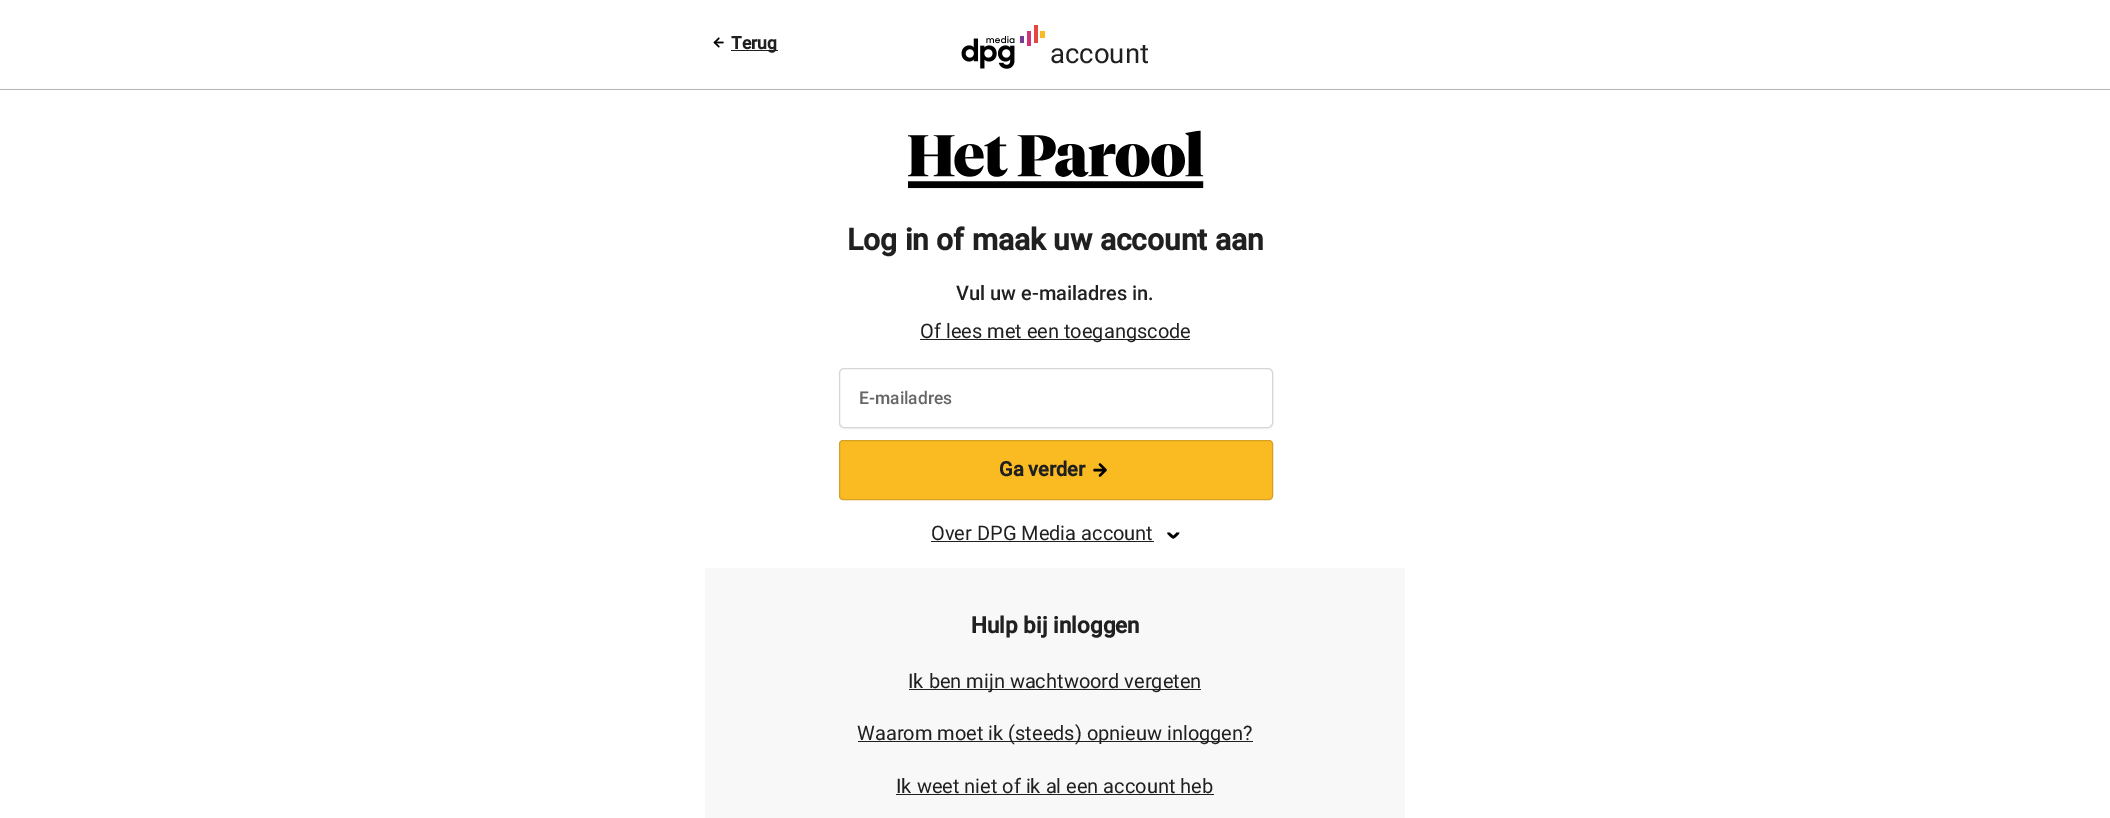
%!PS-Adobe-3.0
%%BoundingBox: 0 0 2110 818
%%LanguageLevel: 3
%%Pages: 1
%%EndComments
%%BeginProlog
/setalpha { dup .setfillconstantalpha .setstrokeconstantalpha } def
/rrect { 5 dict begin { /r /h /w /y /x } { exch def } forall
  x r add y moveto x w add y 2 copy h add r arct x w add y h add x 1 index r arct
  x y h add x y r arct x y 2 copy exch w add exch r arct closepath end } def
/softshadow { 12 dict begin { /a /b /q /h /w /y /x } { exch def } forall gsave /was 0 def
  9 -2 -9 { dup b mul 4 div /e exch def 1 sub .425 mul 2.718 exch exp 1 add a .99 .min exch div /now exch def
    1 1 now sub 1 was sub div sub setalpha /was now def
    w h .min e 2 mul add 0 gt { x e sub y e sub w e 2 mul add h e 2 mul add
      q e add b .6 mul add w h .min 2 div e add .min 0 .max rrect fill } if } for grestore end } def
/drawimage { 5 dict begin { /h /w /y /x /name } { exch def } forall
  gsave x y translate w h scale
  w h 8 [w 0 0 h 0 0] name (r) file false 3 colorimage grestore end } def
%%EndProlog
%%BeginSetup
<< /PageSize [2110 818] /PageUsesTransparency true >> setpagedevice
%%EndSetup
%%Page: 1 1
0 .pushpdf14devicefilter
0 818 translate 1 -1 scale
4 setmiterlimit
1 setgray
0 0 2110 818 rectfill
0.706 setgray
0 89 2110 1 rectfill
(images/1.raw) 713 37 11 11 drawimage
0.125 setgray
731 50 47 1 rectfill
(images/2.raw) 961 25 84 44 drawimage
(images/3.raw) 908 130 296 59 drawimage
920 339 270 1 rectfill
0.063 0.094 0.157 setrgbcolor
839 369 434 60 5 1 0.05 softshadow
1 setgray
839.5 368.5 433 59 4.5 rrect gsave fill grestore
0.839 setgray
stroke
0.98 0.733 0.133 setrgbcolor
839.5 440.5 433 59 3.5 rrect gsave fill grestore
0.839 0.627 0.141 setrgbcolor
stroke
0 setgray
2.4 setlinewidth
1 setlinecap
1 setlinejoin
newpath 1094.5 470 moveto 1105.5 470 lineto 1100 464.5 moveto 1105.5 470 lineto 1100 475.5 lineto stroke
0.125 setgray
931 541 223 1 rectfill
0 setgray
2.5 setlinewidth
0 setlinecap
0 setlinejoin
newpath 1178 532.5 moveto 1178 533.5 1176.5 534.5 1176 535 curveto 1173 538 1173.5 538 1170.5 535 curveto 1170 534.5 1168.5 533.5 1168.5 532.5 curveto stroke
0.973 setgray
705 568 700 250 rectfill
0.125 setgray
909 689 292 1 rectfill
858 741 395 1 rectfill
896 794 318 1 rectfill
/Roboto-Bold [17.5 0 0 -17.5 0 0] selectfont
731 49 moveto (Terug) show
/Roboto-Regular [27.5 0 0 -27.5 0 0] selectfont
1050 63 moveto (account) show
/Roboto-Bold [30 0 0 -30 0 0] selectfont
847 250 moveto (Log in of maak uw account aan) show
/Roboto-Medium [20 0 0 -20 0 0] selectfont
956 300 moveto (Vul uw e-mailadres in.) show
/Roboto-Regular [20 0 0 -20 0 0] selectfont
920 338 moveto (Of lees met een toegangscode) show
/Roboto-Medium [17.5 0 0 -17.5 0 0] selectfont
0.4 setgray
859 404 moveto (E-mailadres) show
/Roboto-Bold [20 0 0 -20 0 0] selectfont
0.125 setgray
999 476 moveto (Ga verder) show
/Roboto-Regular [20 0 0 -20 0 0] selectfont
931 540 moveto (Over DPG Media account) show
/Roboto-Bold [22.5 0 0 -22.5 0 0] selectfont
971 633 moveto (Hulp bij inloggen) show
/Roboto-Regular [20 0 0 -20 0 0] selectfont
908 688 moveto (Ik ben mijn wachtwoord vergeten) show
857 740 moveto (Waarom moet ik \(steeds\) opnieuw inloggen?) show
896 793 moveto (Ik weet niet of ik al een account heb) show
.poppdf14devicefilter showpage
%%EOF
